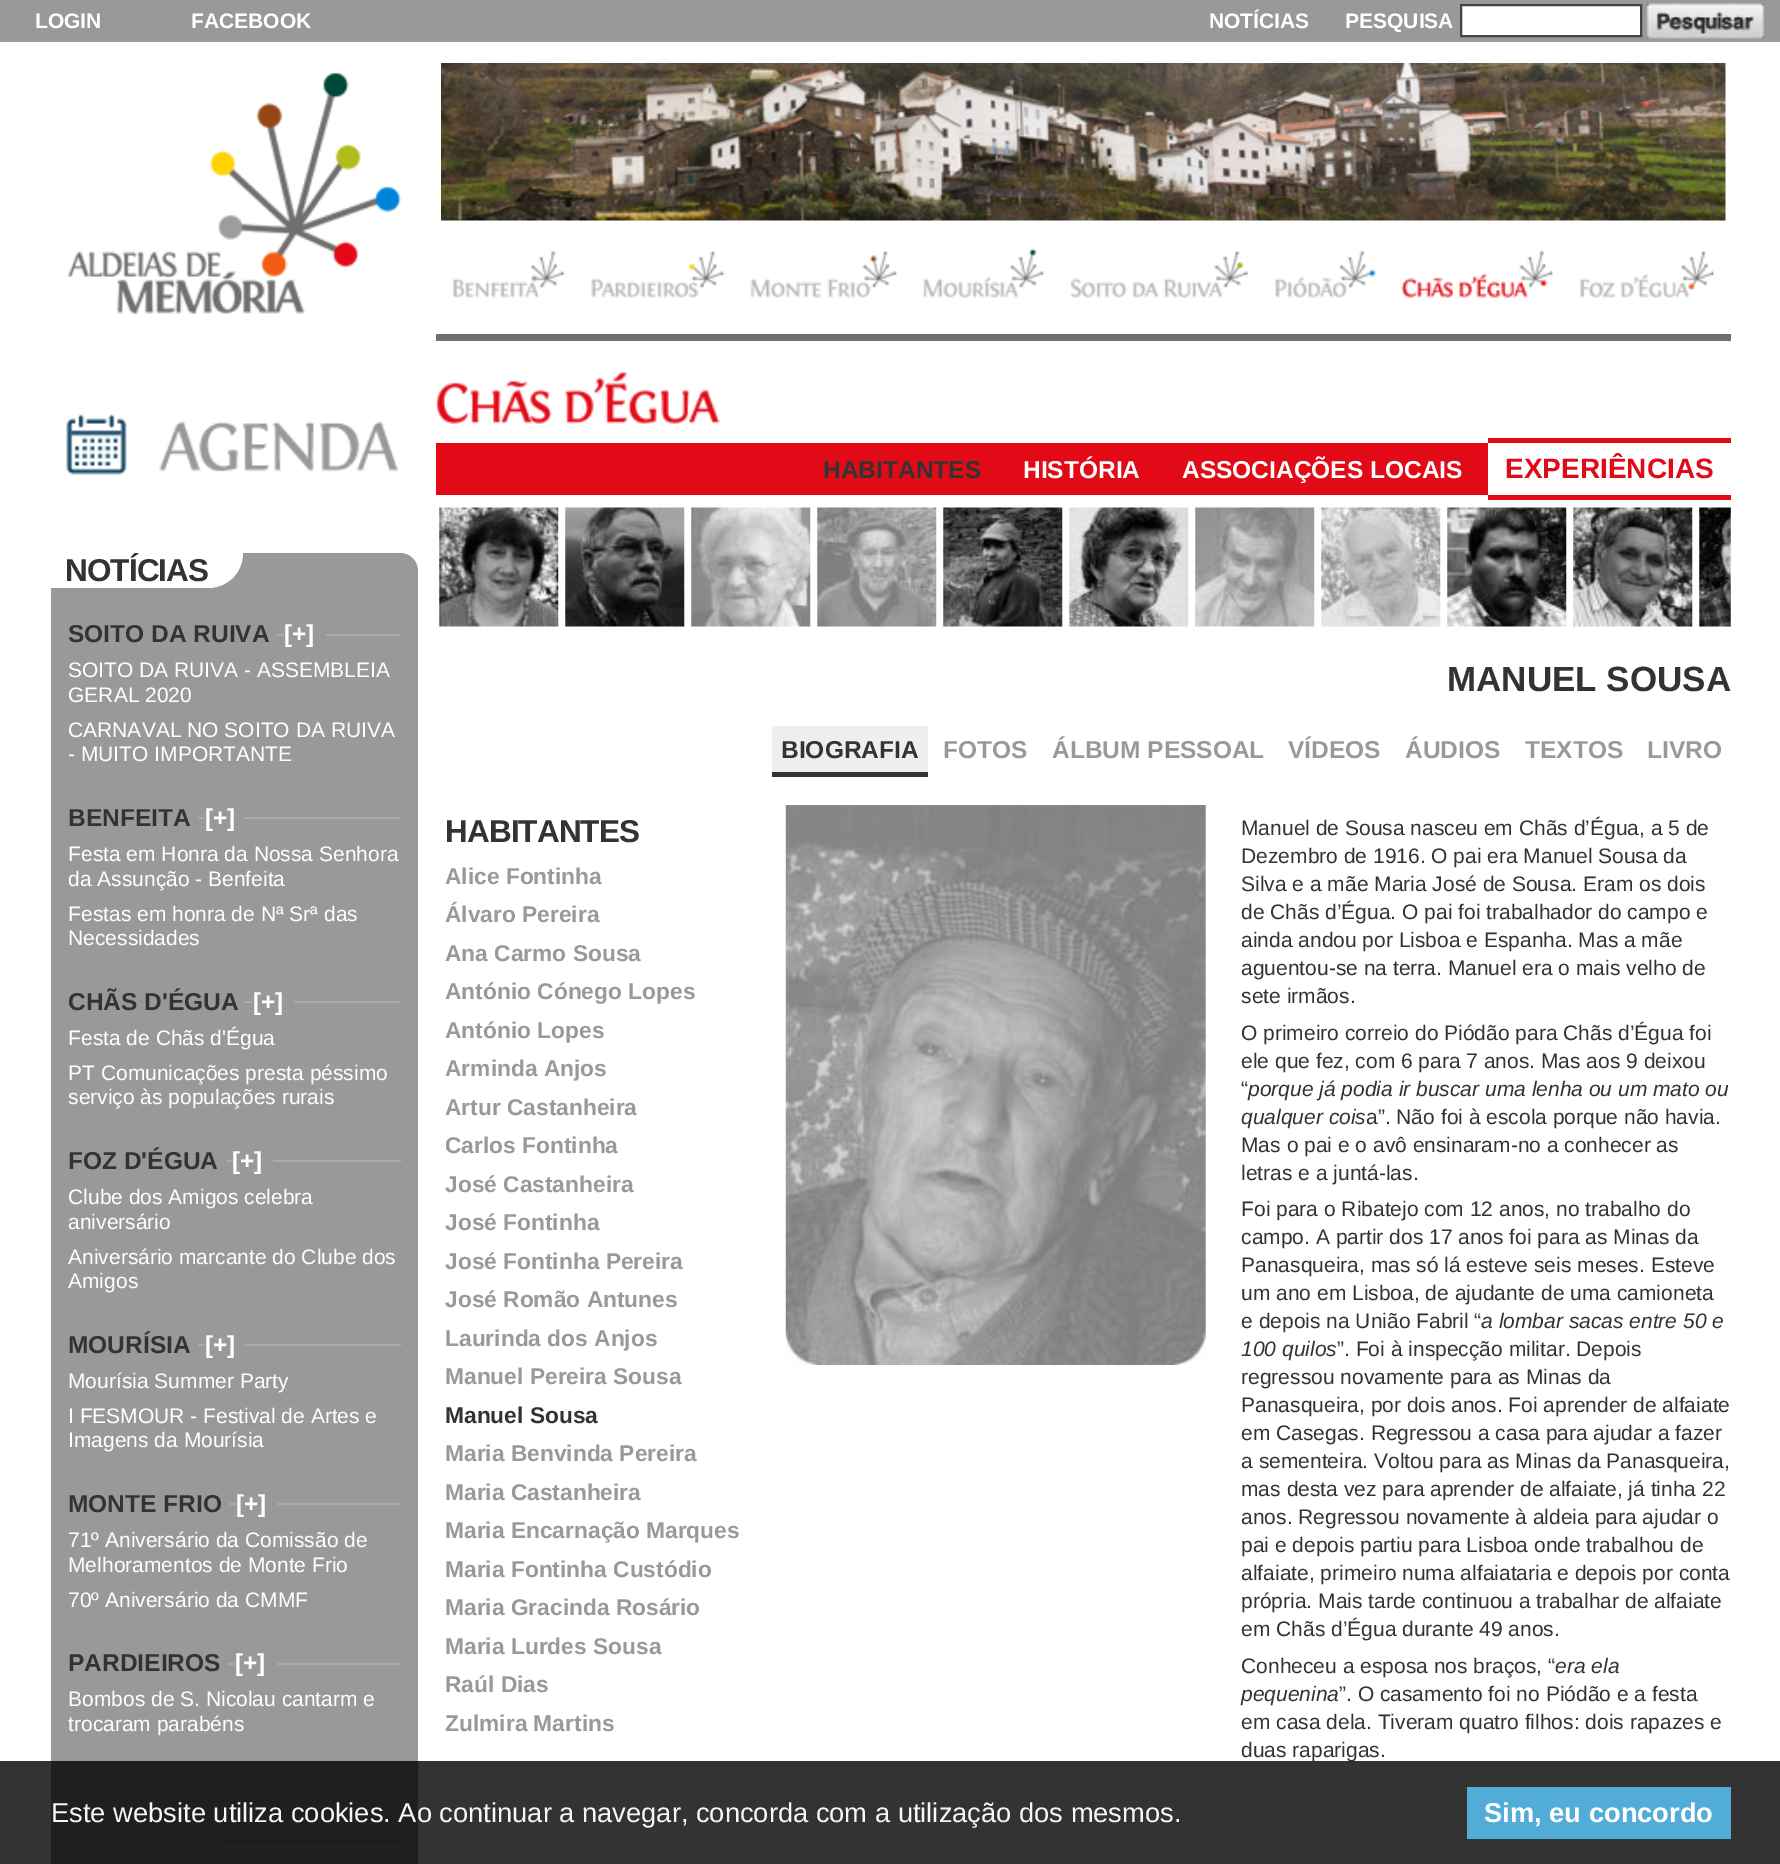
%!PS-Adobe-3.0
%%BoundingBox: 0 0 1780 1864
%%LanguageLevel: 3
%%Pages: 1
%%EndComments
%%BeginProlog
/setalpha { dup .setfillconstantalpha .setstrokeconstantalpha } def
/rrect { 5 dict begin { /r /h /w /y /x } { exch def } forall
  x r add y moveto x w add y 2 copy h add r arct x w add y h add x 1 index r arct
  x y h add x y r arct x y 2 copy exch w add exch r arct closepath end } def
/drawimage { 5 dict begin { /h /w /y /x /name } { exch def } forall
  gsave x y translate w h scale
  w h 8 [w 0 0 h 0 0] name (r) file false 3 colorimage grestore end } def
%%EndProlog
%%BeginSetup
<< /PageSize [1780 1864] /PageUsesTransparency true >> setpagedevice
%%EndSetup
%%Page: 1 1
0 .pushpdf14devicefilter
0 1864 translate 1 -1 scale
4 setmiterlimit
1 setgray
0 0 1780 1864 rectfill
0.443 0.435 0.431 setrgbcolor
436 334 1295 7 rectfill
0.6 setgray
0 0 1780 42 rectfill
1 setgray
newpath 1461 5 moveto 1641 5 lineto 1641 36 lineto 1461 36 lineto closepath gsave fill grestore
0.267 setgray
2 setlinewidth
stroke
(images/1.raw) 1646 3 118 36 drawimage
(images/2.raw) 441 63 1285 158 drawimage
(images/3.raw) 453 250 113 48 drawimage
(images/4.raw) 591 250 134 48 drawimage
(images/5.raw) 750 250 147 48 drawimage
(images/6.raw) 923 248 122 50 drawimage
(images/7.raw) 1070 250 179 48 drawimage
(images/8.raw) 1274 250 102 48 drawimage
(images/9.raw) 1401 250 153 48 drawimage
(images/10.raw) 1580 250 134 48 drawimage
(images/11.raw) 435 372 285 52 drawimage
0.886 0.039 0.086 setrgbcolor
436 443 1052 52 rectfill
1488 438 243 5 rectfill
1488 495 243 5 rectfill
(images/12.raw) 66 414 333 61 drawimage
0.6 setgray
51 553 367 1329 18 rrect fill
1 setgray
newpath 51 553 moveto 243 553 lineto 243 572.5 227.5 588 208 588 curveto 51 588 lineto closepath fill
0.667 setgray
277 634 124 2 rectfill
0.6 setgray
284 634 42 2 rectfill
0.667 setgray
198 817 203 2 rectfill
0.6 setgray
205 817 40 2 rectfill
0.667 setgray
245 1001 156 2 rectfill
0.6 setgray
252 1001 42 2 rectfill
0.667 setgray
226 1160 175 2 rectfill
0.6 setgray
233 1160 40 2 rectfill
0.667 setgray
198 1344 203 2 rectfill
0.6 setgray
205 1344 40 2 rectfill
0.667 setgray
229 1503 172 2 rectfill
0.6 setgray
236 1503 41 2 rectfill
0.667 setgray
228 1663 173 2 rectfill
0.6 setgray
235 1663 42 2 rectfill
0.667 setgray
172 1846 229 2 rectfill
0.6 setgray
179 1846 42 2 rectfill
(images/13.raw) 439 507 120 120 drawimage
(images/14.raw) 565 507 120 120 drawimage
(images/15.raw) 691 507 120 120 drawimage
(images/16.raw) 817 507 120 120 drawimage
(images/17.raw) 943 507 120 120 drawimage
(images/18.raw) 1069 507 120 120 drawimage
(images/19.raw) 1195 507 120 120 drawimage
(images/20.raw) 1321 507 120 120 drawimage
(images/21.raw) 1447 507 120 120 drawimage
(images/22.raw) 1573 507 120 120 drawimage
(images/23.raw) 1699 507 32 120 drawimage
0.933 setgray
772 726 156 46 rectfill
0.2 setgray
772 772 156 5 rectfill
(images/24.raw) 785 805 421 560 drawimage
(images/25.raw) 67 71 335 244 drawimage
/LiberationSans-Bold [21 0 0 -21 0 0] selectfont
1 setgray
35 28 moveto (LOGIN) show
191 28 moveto (FACEBOOK) show
1209 28 moveto (NOTÍCIAS) show
1345 28 moveto (PESQUISA) show
/LiberationSans-Bold [24.5 0 0 -24.5 0 0] selectfont
0.2 setgray
823 478 moveto (HABITANTES) show
1 setgray
1023 478 moveto (HISTÓRIA) show
1182 478 moveto (ASSOCIAÇÕES LOCAIS) show
/LiberationSans-Bold [28 0 0 -28 0 0] selectfont
0.886 0.039 0.086 setrgbcolor
1505 478 moveto (EXPERIÊNCIAS) show
/LiberationSans-Bold [31.5 0 0 -31.5 0 0] selectfont
0.2 setgray
65 581 moveto -0.9 0 (NOTÍCIAS) ashow
/LiberationSans-Bold [24.5 0 0 -24.5 0 0] selectfont
68 642 moveto (SOITO DA RUIVA) show
1 setgray
284 642 moveto ([+]) show
/LiberationSans-Regular [21 0 0 -21 0 0] selectfont
68 677 moveto (SOITO DA RUIVA - ASSEMBLEIA) show
68 702 moveto (GERAL 2020) show
68 737 moveto (CARNAVAL NO SOITO DA RUIVA) show
68 761 moveto (- MUITO IMPORTANTE) show
/LiberationSans-Bold [24.5 0 0 -24.5 0 0] selectfont
0.2 setgray
68 826 moveto (BENFEITA) show
1 setgray
205 826 moveto ([+]) show
/LiberationSans-Regular [21 0 0 -21 0 0] selectfont
68 861 moveto (Festa em Honra da Nossa Senhora) show
68 886 moveto (da Assunção - Benfeita) show
68 921 moveto (Festas em honra de Nª Srª das) show
68 945 moveto (Necessidades) show
/LiberationSans-Bold [24.5 0 0 -24.5 0 0] selectfont
0.2 setgray
68 1010 moveto (CHÃS D'ÉGUA) show
1 setgray
253 1010 moveto ([+]) show
/LiberationSans-Regular [21 0 0 -21 0 0] selectfont
68 1045 moveto (Festa de Chãs d'Égua) show
68 1080 moveto (PT Comunicações presta péssimo) show
68 1104 moveto (serviço às populações rurais) show
/LiberationSans-Bold [24.5 0 0 -24.5 0 0] selectfont
0.2 setgray
68 1169 moveto (FOZ D'ÉGUA) show
1 setgray
232 1169 moveto ([+]) show
/LiberationSans-Regular [21 0 0 -21 0 0] selectfont
68 1204 moveto (Clube dos Amigos celebra) show
68 1229 moveto (aniversário) show
68 1264 moveto (Aniversário marcante do Clube dos) show
68 1288 moveto (Amigos) show
/LiberationSans-Bold [24.5 0 0 -24.5 0 0] selectfont
0.2 setgray
68 1353 moveto (MOURÍSIA) show
1 setgray
205 1353 moveto ([+]) show
/LiberationSans-Regular [21 0 0 -21 0 0] selectfont
68 1388 moveto (Mourísia Summer Party) show
68 1423 moveto (I FESMOUR - Festival de Artes e) show
68 1447 moveto (Imagens da Mourísia) show
/LiberationSans-Bold [24.5 0 0 -24.5 0 0] selectfont
0.2 setgray
68 1512 moveto (MONTE FRIO) show
1 setgray
236 1512 moveto ([+]) show
/LiberationSans-Regular [21 0 0 -21 0 0] selectfont
68 1547 moveto (71º Aniversário da Comissão de) show
68 1572 moveto (Melhoramentos de Monte Frio) show
68 1607 moveto (70º Aniversário da CMMF) show
/LiberationSans-Bold [24.5 0 0 -24.5 0 0] selectfont
0.2 setgray
68 1671 moveto (PARDIEIROS) show
1 setgray
235 1671 moveto ([+]) show
/LiberationSans-Regular [21 0 0 -21 0 0] selectfont
68 1706 moveto (Bombos de S. Nicolau cantarm e) show
68 1731 moveto (trocaram parabéns) show
/LiberationSans-Bold [35 0 0 -35 0 0] selectfont
0.2 setgray
1447 691 moveto (MANUEL SOUSA) show
/LiberationSans-Bold [24.5 0 0 -24.5 0 0] selectfont
781 758 moveto (BIOGRAFIA) show
0.6 setgray
943 758 moveto (FOTOS) show
1052 758 moveto (ÁLBUM PESSOAL) show
1288 758 moveto (VÍDEOS) show
1405 758 moveto (ÁUDIOS) show
1525 758 moveto (TEXTOS) show
1647 758 moveto (LIVRO) show
/LiberationSans-Bold [31.5 0 0 -31.5 0 0] selectfont
0.2 setgray
445 842 moveto -0.9 0 (HABITANTES) ashow
/LiberationSans-Bold [22.75 0 0 -22.75 0 0] selectfont
0.6 setgray
445 884 moveto (Alice Fontinha) show
445 922 moveto (Álvaro Pereira) show
445 961 moveto (Ana Carmo Sousa) show
445 999 moveto (António Cónego Lopes) show
445 1038 moveto (António Lopes) show
445 1076 moveto (Arminda Anjos) show
445 1115 moveto (Artur Castanheira) show
445 1153 moveto (Carlos Fontinha) show
445 1192 moveto (José Castanheira) show
445 1230 moveto (José Fontinha) show
445 1269 moveto (José Fontinha Pereira) show
445 1307 moveto (José Romão Antunes) show
445 1346 moveto (Laurinda dos Anjos) show
445 1384 moveto (Manuel Pereira Sousa) show
0.2 setgray
445 1423 moveto (Manuel Sousa) show
0.6 setgray
445 1461 moveto (Maria Benvinda Pereira) show
445 1500 moveto (Maria Castanheira) show
445 1538 moveto (Maria Encarnação Marques) show
445 1577 moveto (Maria Fontinha Custódio) show
445 1615 moveto (Maria Gracinda Rosário) show
445 1654 moveto (Maria Lurdes Sousa) show
445 1692 moveto (Raúl Dias) show
445 1731 moveto (Zulmira Martins) show
/LiberationSans-Regular [21 0 0 -21 0 0] selectfont
0.2 setgray
1241 835 moveto (Manuel de Sousa nasceu em Chãs d’Égua, a 5 de) show
1241 863 moveto (Dezembro de 1916. O pai era Manuel Sousa da) show
1241 891 moveto (Silva e a mãe Maria José de Sousa. Eram os dois) show
1241 919 moveto (de Chãs d’Égua. O pai foi trabalhador do campo e) show
1241 947 moveto (ainda andou por Lisboa e Espanha. Mas a mãe) show
1241 975 moveto (aguentou-se na terra. Manuel era o mais velho de) show
1241 1003 moveto (sete irmãos.) show
1241 1040 moveto (O primeiro correio do Piódão para Chãs d’Égua foi) show
1241 1068 moveto (ele que fez, com 6 para 7 anos. Mas aos 9 deixou) show
1241 1096 moveto (“) show
/LiberationSans-Italic [21 0 0 -21 0 0] selectfont
1248 1096 moveto (porque já podia ir buscar uma lenha ou um mato ou) show
1241 1124 moveto (qualquer cois) show
/LiberationSans-Regular [21 0 0 -21 0 0] selectfont
1366 1124 moveto (a”. Não foi à escola porque não havia.) show
1241 1152 moveto (Mas o pai e o avô ensinaram-no a conhecer as) show
1241 1180 moveto (letras e a juntá-las.) show
1241 1216 moveto (Foi para o Ribatejo com 12 anos, no trabalho do) show
1241 1244 moveto (campo. A partir dos 17 anos foi para as Minas da) show
1241 1272 moveto (Panasqueira, mas só lá esteve seis meses. Esteve) show
1241 1300 moveto (um ano em Lisboa, de ajudante de uma camioneta) show
1241 1328 moveto (e depois na União Fabril “) show
/LiberationSans-Italic [21 0 0 -21 0 0] selectfont
1481 1328 moveto (a lombar sacas entre 50 e) show
1241 1356 moveto (100 quilos) show
/LiberationSans-Regular [21 0 0 -21 0 0] selectfont
1337 1356 moveto (”. Foi à inspecção militar. Depois) show
1241 1384 moveto (regressou novamente para as Minas da) show
1241 1412 moveto (Panasqueira, por dois anos. Foi aprender de alfaiate) show
1241 1440 moveto (em Casegas. Regressou a casa para ajudar a fazer) show
1241 1468 moveto (a sementeira. Voltou para as Minas da Panasqueira,) show
1241 1496 moveto (mas desta vez para aprender de alfaiate, já tinha 22) show
1241 1524 moveto (anos. Regressou novamente à aldeia para ajudar o) show
1241 1552 moveto (pai e depois partiu para Lisboa onde trabalhou de) show
1241 1580 moveto (alfaiate, primeiro numa alfaiataria e depois por conta) show
1241 1608 moveto (própria. Mais tarde continuou a trabalhar de alfaiate) show
1241 1636 moveto (em Chãs d’Égua durante 49 anos.) show
1241 1673 moveto (Conheceu a esposa nos braços, “) show
/LiberationSans-Italic [21 0 0 -21 0 0] selectfont
1555 1673 moveto (era ela) show
1241 1701 moveto (pequenina) show
/LiberationSans-Regular [21 0 0 -21 0 0] selectfont
1339 1701 moveto (”. O casamento foi no Piódão e a festa) show
1241 1729 moveto (em casa dela. Tiveram quatro filhos: dois rapazes e) show
1241 1757 moveto (duas raparigas.) show
0.8 setalpha
0 setgray
0 1761 1780 103 rectfill
/LiberationSans-Regular [27.3 0 0 -27.3 0 0] selectfont
1 setalpha
0.973 0.969 0.961 setrgbcolor
51 1822 moveto (Este website utiliza cookies. Ao continuar a navegar, concorda com a utilização dos mesmos.) show
0.318 0.678 0.843 setrgbcolor
1467 1787 264 52 rectfill
/LiberationSans-Bold [27.3 0 0 -27.3 0 0] selectfont
1 setgray
1484 1822 moveto (Sim, eu concordo) show
.poppdf14devicefilter showpage
%%EOF
